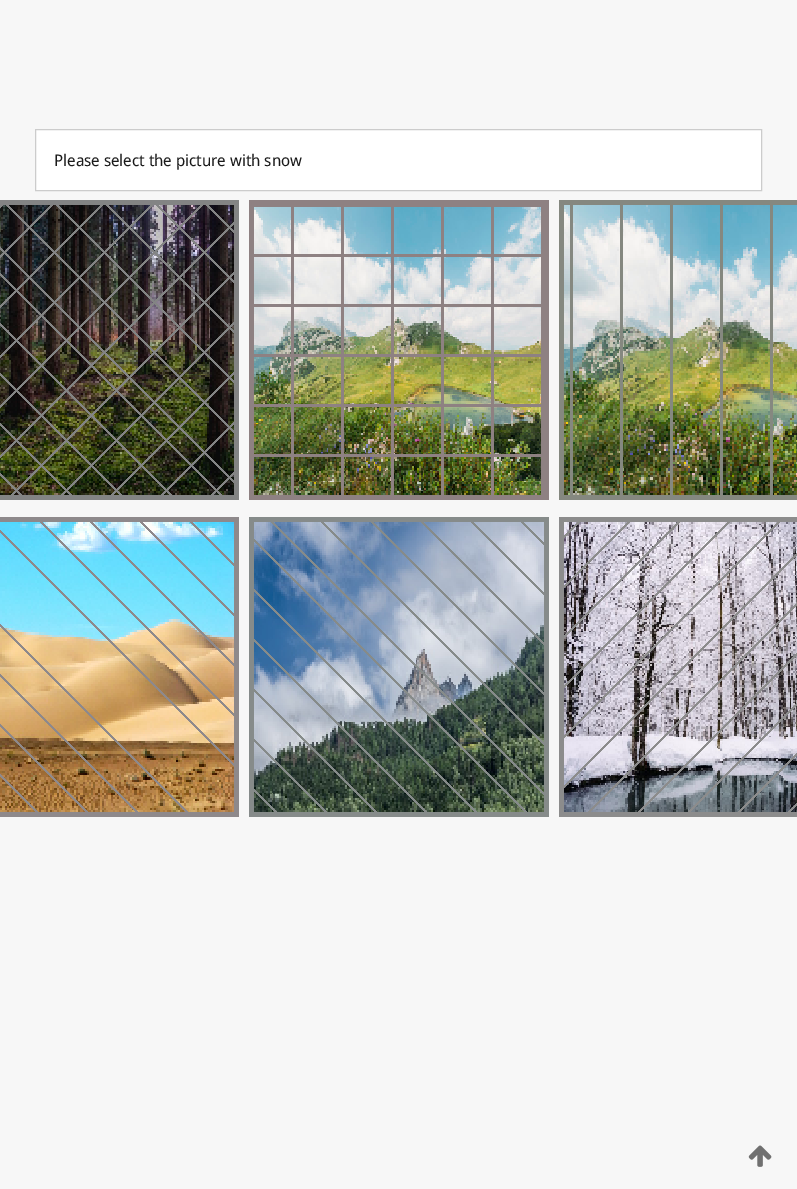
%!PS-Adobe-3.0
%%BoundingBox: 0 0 797 1189
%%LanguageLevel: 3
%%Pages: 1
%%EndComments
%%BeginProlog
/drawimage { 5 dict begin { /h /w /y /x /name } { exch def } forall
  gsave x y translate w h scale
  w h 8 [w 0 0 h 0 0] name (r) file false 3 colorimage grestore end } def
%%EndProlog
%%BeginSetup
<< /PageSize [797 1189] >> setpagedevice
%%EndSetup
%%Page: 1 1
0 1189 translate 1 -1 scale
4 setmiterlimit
0.969 setgray
0 0 797 1189 rectfill
1 setgray
newpath 35.5 129.5 moveto 761.5 129.5 lineto 761.5 190.5 lineto 35.5 190.5 lineto closepath gsave fill grestore
0.8 setgray
stroke
(images/1.raw) 0 200 239 300 drawimage
(images/2.raw) 249 200 300 300 drawimage
(images/3.raw) 559 200 238 300 drawimage
(images/4.raw) 0 517 239 300 drawimage
(images/5.raw) 249 517 300 300 drawimage
(images/6.raw) 559 517 238 300 drawimage
(images/7.raw) 748 1145 24 22 drawimage
/NotoSansDisplay-Regular [16 0 0 -16 0 0] selectfont
0.102 setgray
54 166 moveto (Please select the picture with snow) show
showpage
%%EOF
